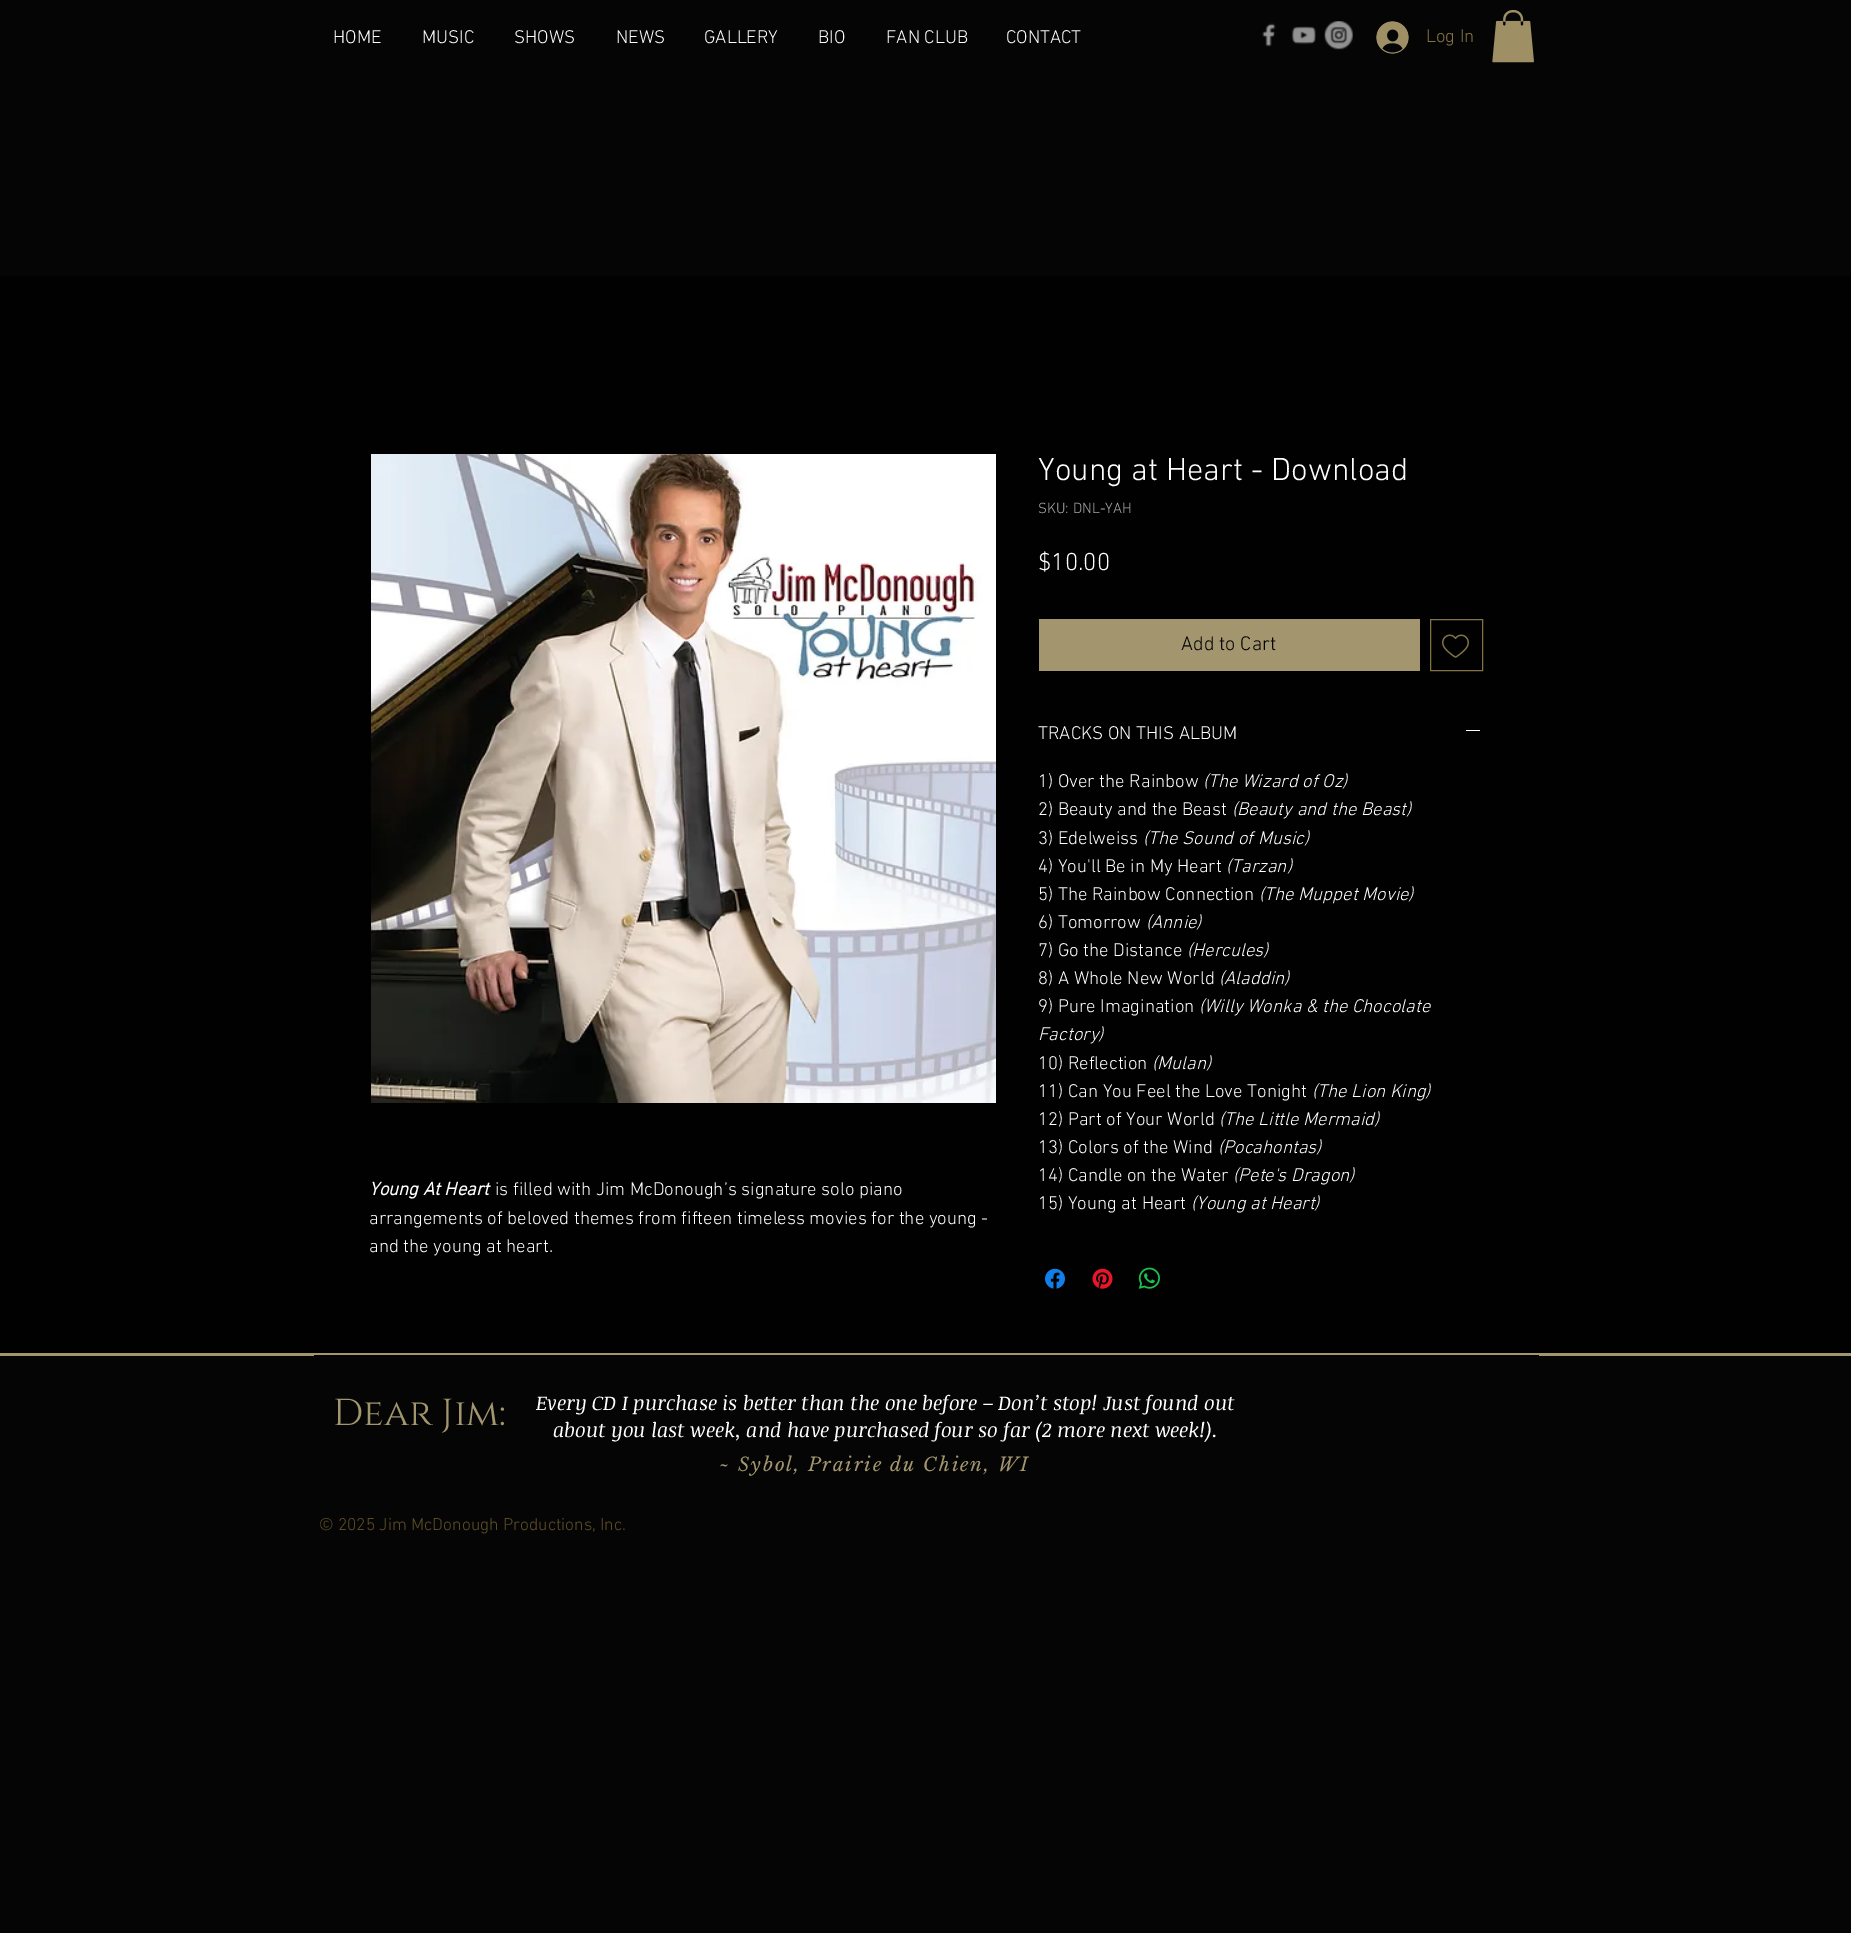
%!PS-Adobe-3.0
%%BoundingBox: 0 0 1851 1933
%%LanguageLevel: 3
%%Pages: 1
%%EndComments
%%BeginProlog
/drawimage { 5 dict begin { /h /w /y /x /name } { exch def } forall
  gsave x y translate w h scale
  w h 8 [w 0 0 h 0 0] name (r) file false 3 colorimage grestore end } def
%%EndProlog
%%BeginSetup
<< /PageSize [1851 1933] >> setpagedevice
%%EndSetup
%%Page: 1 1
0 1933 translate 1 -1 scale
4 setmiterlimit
0.02 setgray
0 0 1851 1933 rectfill
(images/1.raw) 1262 23 14 24 drawimage
(images/2.raw) 1291 26 25 19 drawimage
(images/3.raw) 1324 21 29 29 drawimage
(images/4.raw) 1376 21 33 33 drawimage
(images/5.raw) 1492 10 42 53 drawimage
0.004 setgray
0 276 1851 1077 rectfill
(images/6.raw) 371 454 625 649 drawimage
0.639 0.584 0.427 setrgbcolor
1039 619 381 52 rectfill
0.514 0.447 0.267 setrgbcolor
1430.5 619.5 52 51 rectstroke
(images/7.raw) 1442 634 27 24 drawimage
1 setgray
1466 730 14 1 rectfill
(images/8.raw) 1045 1268 20 21 drawimage
(images/9.raw) 1092 1268 21 21 drawimage
(images/10.raw) 1138 1267 22 22 drawimage
0.639 0.584 0.427 setrgbcolor
0 1353 1851 3 rectfill
0.02 setgray
314 1355 1225 1 rectfill
/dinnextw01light-Light [18.75 0 0 -18.75 0 0] selectfont
1 setgray
333 43 moveto (HOME) show
422 43 moveto (MUSIC) show
514 43 moveto (SHOWS) show
616 43 moveto (NEWS) show
704 43 moveto (GALLERY) show
818 43 moveto (BIO) show
886 43 moveto (FAN CLUB) show
1006 43 moveto (CONTACT) show
0.514 0.447 0.267 setrgbcolor
1426 42 moveto (Log In) show
/dinnextw01light-BoldItalic [18.75 0 0 -18.75 0 0] selectfont
1 setgray
369 1195 moveto (Young At Heart) show
/dinnextw01light-Light [18.75 0 0 -18.75 0 0] selectfont
495 1195 moveto (is filled with Jim McDonough’s signature solo piano) show
369 1224 moveto (arrangements of beloved themes from fifteen timeless movies for the young -) show
369 1252 moveto (and the young at heart.) show
/dinnextw01light-Light [32.5 0 0 -32.5 0 0] selectfont
1038 480 moveto (Young at Heart - Download) show
/dinnextw01light-Light [15 0 0 -15 0 0] selectfont
0.667 setgray
1038 513 moveto (SKU: DNL-YAH) show
/dinnextw01light-Light [25 0 0 -25 0 0] selectfont
1 setgray
1038 570 moveto ($10.00) show
/dinnextw01light-Light [20 0 0 -20 0 0] selectfont
0.02 setgray
1181 650 moveto (Add to Cart) show
/dinnextw01light-Light [18.75 0 0 -18.75 0 0] selectfont
1 setgray
1038 739 moveto (TRACKS ON THIS ALBUM) show
1038 787 moveto (1\) Over the Rainbow) show
/dinnextw01light-LightItalic [18.75 0 0 -18.75 0 0] selectfont
1203 787 moveto (\(The Wizard of Oz\)) show
/dinnextw01light-Light [18.75 0 0 -18.75 0 0] selectfont
1038 815 moveto (2\) Beauty and the Beast) show
/dinnextw01light-LightItalic [18.75 0 0 -18.75 0 0] selectfont
1232 815 moveto (\(Beauty and the Beast\)) show
/dinnextw01light-Light [18.75 0 0 -18.75 0 0] selectfont
1038 844 moveto (3\) Edelweiss) show
/dinnextw01light-LightItalic [18.75 0 0 -18.75 0 0] selectfont
1143 844 moveto (\(The Sound of Music\)) show
/dinnextw01light-Light [18.75 0 0 -18.75 0 0] selectfont
1038 872 moveto (4\) You'll Be in My Heart) show
/dinnextw01light-LightItalic [18.75 0 0 -18.75 0 0] selectfont
1226 872 moveto (\(Tarzan\)) show
/dinnextw01light-Light [18.75 0 0 -18.75 0 0] selectfont
1038 900 moveto (5\) The Rainbow Connection) show
/dinnextw01light-LightItalic [18.75 0 0 -18.75 0 0] selectfont
1259 900 moveto (\(The Muppet Movie\)) show
/dinnextw01light-Light [18.75 0 0 -18.75 0 0] selectfont
1038 928 moveto (6\) Tomorrow) show
/dinnextw01light-LightItalic [18.75 0 0 -18.75 0 0] selectfont
1146 928 moveto (\(Annie\)) show
/dinnextw01light-Light [18.75 0 0 -18.75 0 0] selectfont
1038 956 moveto (7\) Go the Distance) show
/dinnextw01light-LightItalic [18.75 0 0 -18.75 0 0] selectfont
1187 956 moveto (\(Hercules\)) show
/dinnextw01light-Light [18.75 0 0 -18.75 0 0] selectfont
1038 984 moveto (8\) A Whole New World) show
/dinnextw01light-LightItalic [18.75 0 0 -18.75 0 0] selectfont
1219 984 moveto (\(Aladdin\)) show
/dinnextw01light-Light [18.75 0 0 -18.75 0 0] selectfont
1038 1012 moveto (9\) Pure Imagination) show
/dinnextw01light-LightItalic [18.75 0 0 -18.75 0 0] selectfont
1199 1012 moveto (\(Willy Wonka & the Chocolate) show
1038 1040 moveto (Factory\)) show
/dinnextw01light-Light [18.75 0 0 -18.75 0 0] selectfont
1038 1069 moveto (10\) Reflection) show
/dinnextw01light-LightItalic [18.75 0 0 -18.75 0 0] selectfont
1152 1069 moveto (\(Mulan\)) show
/dinnextw01light-Light [18.75 0 0 -18.75 0 0] selectfont
1038 1097 moveto (11\) Can You Feel the Love Tonight) show
/dinnextw01light-LightItalic [18.75 0 0 -18.75 0 0] selectfont
1312 1097 moveto (\(The Lion King\)) show
/dinnextw01light-Light [18.75 0 0 -18.75 0 0] selectfont
1038 1125 moveto (12\) Part of Your World) show
/dinnextw01light-LightItalic [18.75 0 0 -18.75 0 0] selectfont
1219 1125 moveto (\(The Little Mermaid\)) show
/dinnextw01light-Light [18.75 0 0 -18.75 0 0] selectfont
1038 1153 moveto (13\) Colors of the Wind) show
/dinnextw01light-LightItalic [18.75 0 0 -18.75 0 0] selectfont
1218 1153 moveto (\(Pocahontas\)) show
/dinnextw01light-Light [18.75 0 0 -18.75 0 0] selectfont
1038 1181 moveto (14\) Candle on the Water) show
/dinnextw01light-LightItalic [18.75 0 0 -18.75 0 0] selectfont
1233 1181 moveto (\(Pete's Dragon\)) show
/dinnextw01light-Light [18.75 0 0 -18.75 0 0] selectfont
1038 1209 moveto (15\) Young at Heart) show
/dinnextw01light-LightItalic [18.75 0 0 -18.75 0 0] selectfont
1191 1209 moveto (\(Young at Heart\)) show
/Cinzel-Regular [37.5 0 0 -37.5 0 0] selectfont
0.639 0.584 0.427 setrgbcolor
333 1425 moveto (Dear Jim:) show
/NoticiaText-Italic [20 0 0 -20 0 0] selectfont
1 setgray
536 1410 moveto (Every CD I purchase is better than the one before – Don’t stop! Just found out) show
553 1437 moveto (about you last week, and have purchased four so far \(2 more next week!\).) show
/LibreBaskerville-Italic [18.75 0 0 -18.75 0 0] selectfont
0.639 0.584 0.427 setrgbcolor
719 1471 moveto 1.9 0 (~ Sybol, Prairie du Chien, WI) ashow
/dinnextw01light-Light [17.5 0 0 -17.5 0 0] selectfont
0.361 0.302 0.149 setrgbcolor
319 1530 moveto (© 2025 Jim McDonough Productions, Inc.) show
showpage
%%EOF
